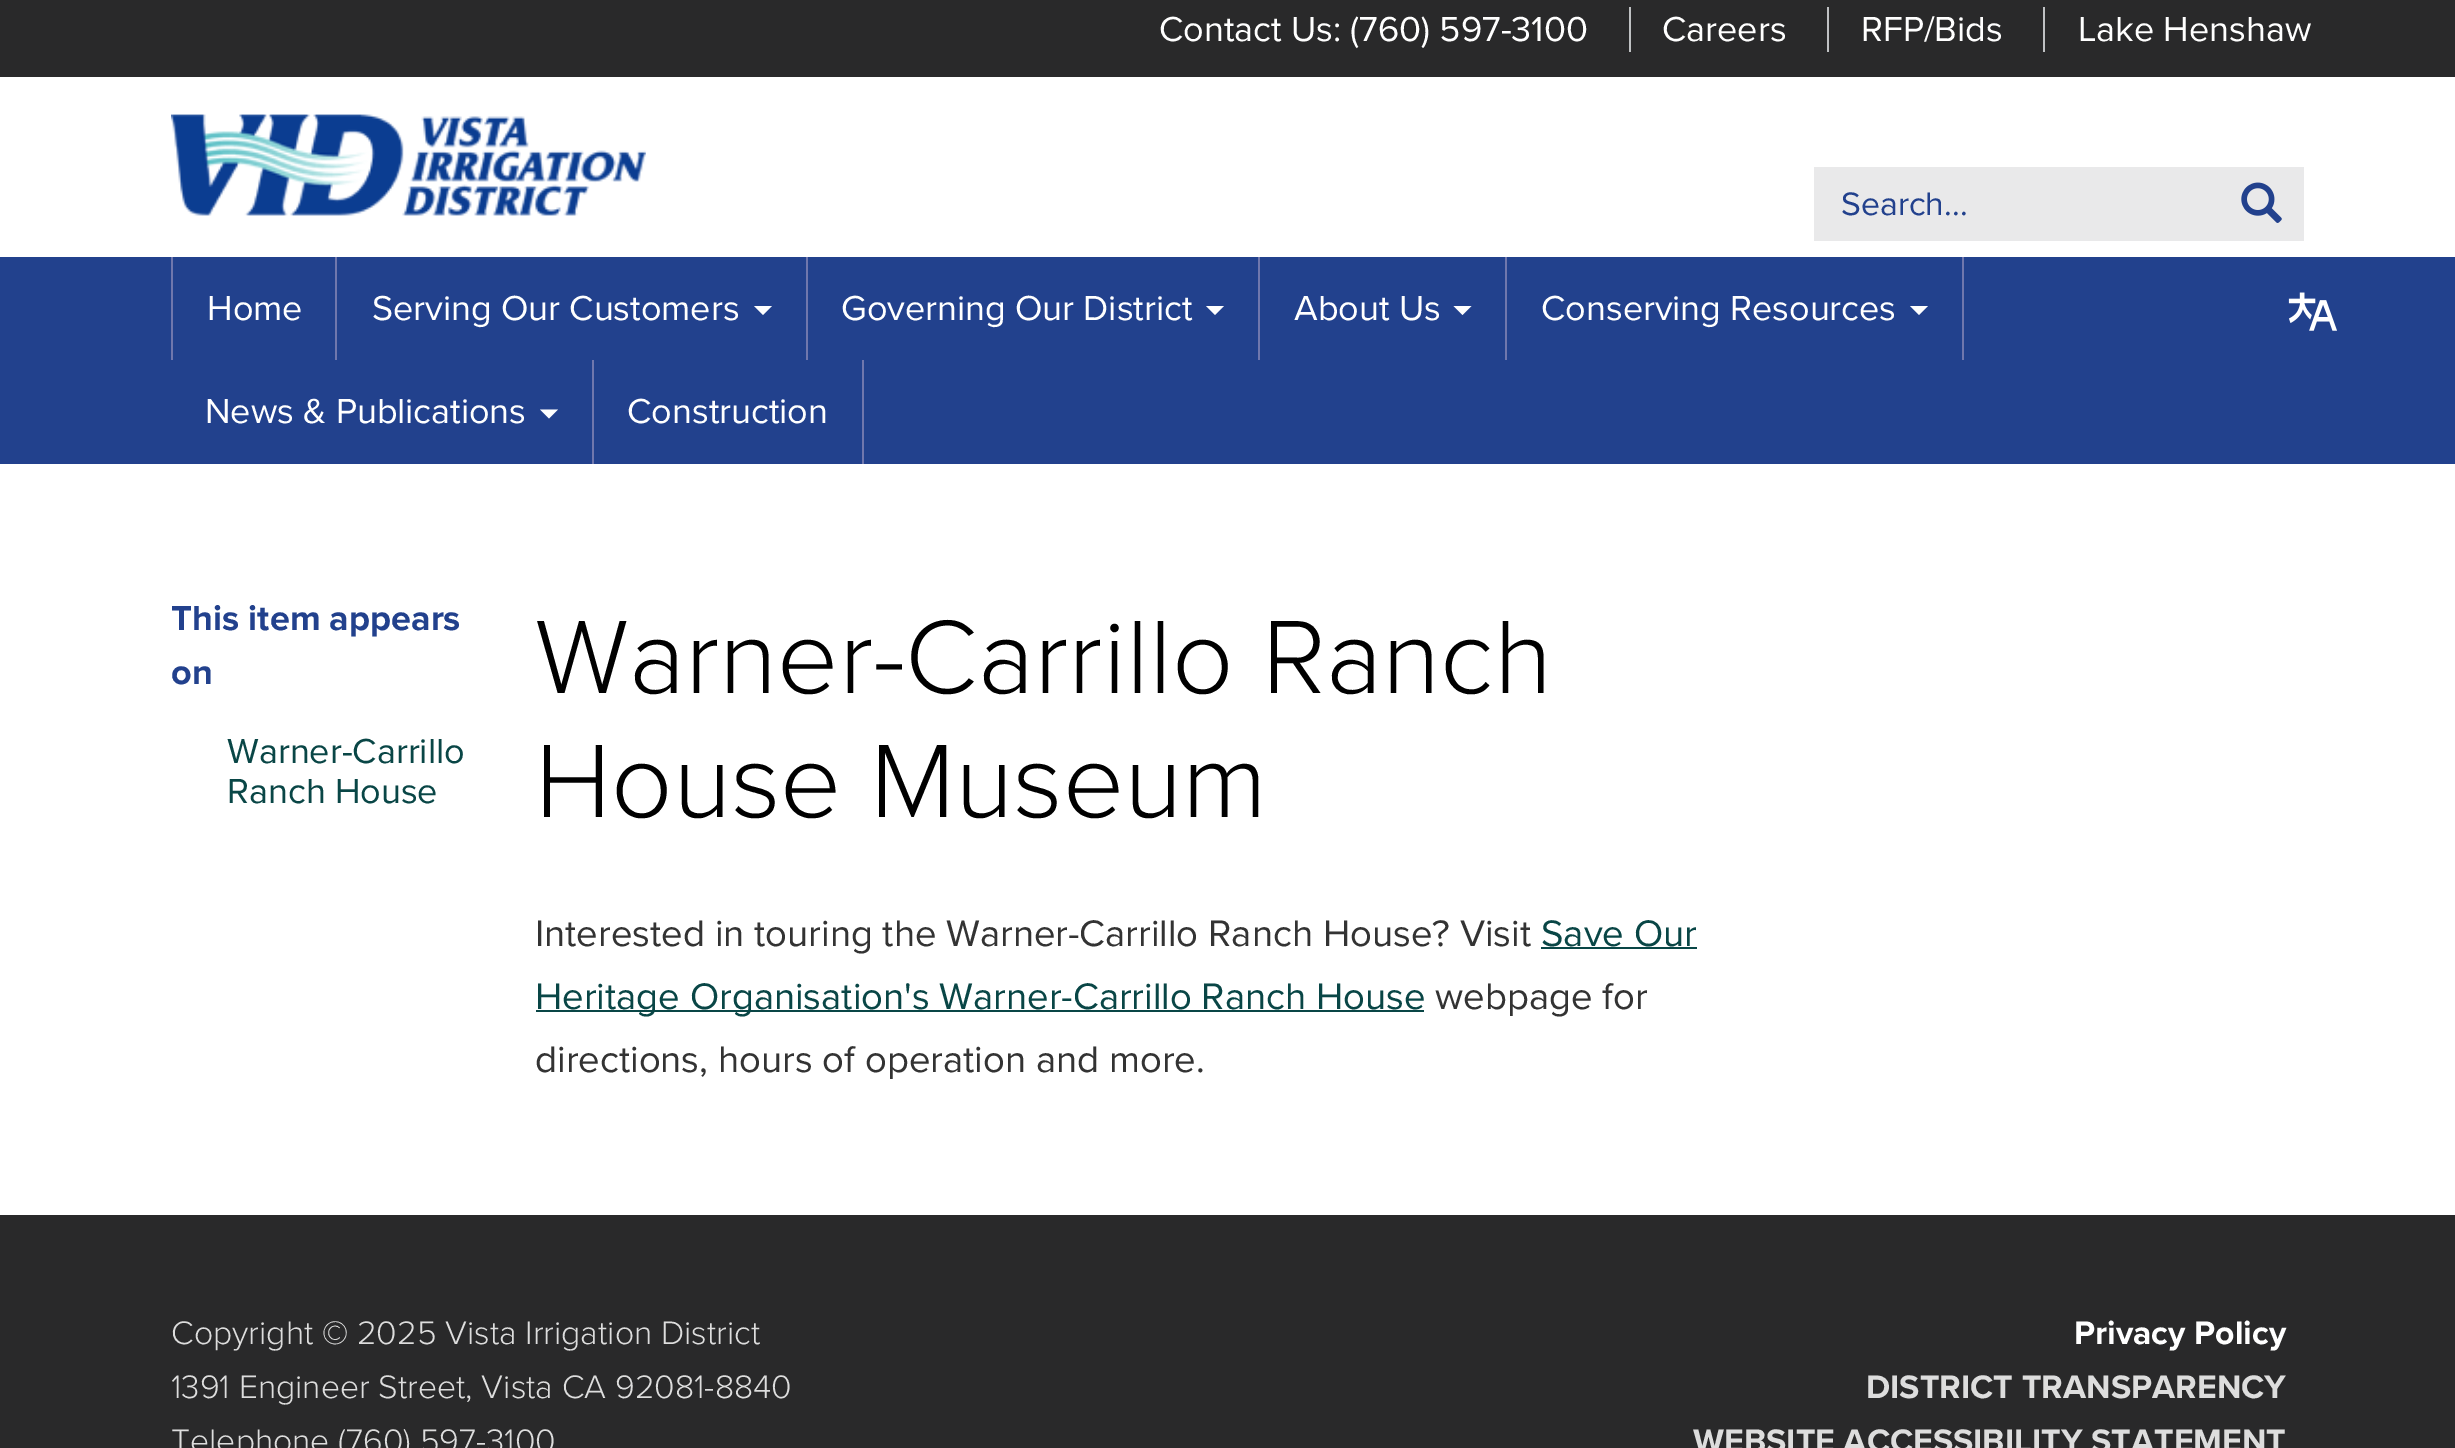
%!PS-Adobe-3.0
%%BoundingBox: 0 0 2455 1448
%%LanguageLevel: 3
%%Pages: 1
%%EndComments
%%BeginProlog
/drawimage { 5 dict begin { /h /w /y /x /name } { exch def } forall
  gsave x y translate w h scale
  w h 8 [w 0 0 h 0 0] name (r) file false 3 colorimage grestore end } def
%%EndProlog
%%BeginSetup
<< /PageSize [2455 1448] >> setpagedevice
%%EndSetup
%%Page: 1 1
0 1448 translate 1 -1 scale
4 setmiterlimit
0.161 0.161 0.165 setrgbcolor
0 0 2455 1448 rectfill
0.749 0.757 0.765 setrgbcolor
1629 7 2 45 rectfill
1827 7 2 45 rectfill
2043 7 2 45 rectfill
1 setgray
0 77 2455 180 rectfill
(images/1.raw) 171 114 475 102 drawimage
0.914 0.914 0.918 setrgbcolor
1814 167 490 74 rectfill
(images/2.raw) 2241 182 41 41 drawimage
0.133 0.255 0.553 setrgbcolor
0 257 2455 207 rectfill
0.439 0.467 0.678 setrgbcolor
335 257 2 103 rectfill
171 257 2 103 rectfill
806 257 2 103 rectfill
1 setgray
newpath 754 306 moveto 772 306 lineto 763 315 lineto closepath fill
0.439 0.467 0.678 setrgbcolor
1258 257 2 103 rectfill
1 setgray
newpath 1206 306 moveto 1224 306 lineto 1215 315 lineto closepath fill
0.439 0.467 0.678 setrgbcolor
1505 257 2 103 rectfill
1 setgray
newpath 1453.5 306 moveto 1471.5 306 lineto 1462.5 315 lineto closepath fill
0.439 0.467 0.678 setrgbcolor
1962 257 2 103 rectfill
1 setgray
newpath 1910 306 moveto 1928 306 lineto 1919 315 lineto closepath fill
0.439 0.467 0.678 setrgbcolor
592 360 2 104 rectfill
1 setgray
newpath 540 409.5 moveto 558 409.5 lineto 549 418.5 lineto closepath fill
0.439 0.467 0.678 setrgbcolor
862 360 2 104 rectfill
(images/3.raw) 2288 292 49 39 drawimage
1 setgray
0 464 2455 751 rectfill
0.035 0.275 0.275 setrgbcolor
1541 947 156 2 rectfill
536 1010 888 2 rectfill
/ProximaNova-Regular [36 0 0 -36 0 0] selectfont
1 setgray
1159 41 moveto (Contact Us: \(760\) 597-3100) show
1662 41 moveto (Careers) show
1861 41 moveto (RFP/Bids) show
2078 41 moveto (Lake Henshaw) show
/ProximaNova-Regular [33.75 0 0 -33.75 0 0] selectfont
0.133 0.255 0.553 setrgbcolor
1841 215 moveto (Search...) show
/ProximaNova-Regular [36 0 0 -36 0 0] selectfont
1 setgray
207 320 moveto (Home) show
372 320 moveto (Serving Our Customers) show
841 320 moveto (Governing Our District) show
1294 320 moveto (About Us) show
1541 320 moveto (Conserving Resources) show
205 423 moveto (News & Publications) show
627 423 moveto (Construction) show
/ProximaNova-Bold [36 0 0 -36 0 0] selectfont
0.133 0.255 0.553 setrgbcolor
171 630 moveto (This item appears) show
171 684 moveto (on) show
/ProximaNova-Regular [36 0 0 -36 0 0] selectfont
0.035 0.275 0.275 setrgbcolor
227 763 moveto (Warner-Carrillo) show
227 803 moveto (Ranch House) show
/ProximaNova-Light [108 0 0 -108 0 0] selectfont
0 setgray
535 693 moveto (Warner-Carrillo Ranch) show
535 817 moveto (House Museum) show
/ProximaNova-Regular [38.25 0 0 -38.25 0 0] selectfont
0.2 setgray
535 946 moveto (Interested in touring the Warner-Carrillo Ranch House? Visit) show
0.035 0.275 0.275 setrgbcolor
1541 946 moveto (Save Our) show
535 1009 moveto (Heritage Organisation's Warner-Carrillo Ranch House) show
0.2 setgray
1435 1009 moveto (webpage for) show
535 1072 moveto (directions, hours of operation and more.) show
/ProximaNova-Light [33.75 0 0 -33.75 0 0] selectfont
0.867 setgray
171 1344 moveto (Copyright © 2025 Vista Irrigation District) show
171 1398 moveto (1391 Engineer Street, Vista CA 92081-8840) show
171 1452 moveto (Telephone \(760\) 597-3100) show
/ProximaNova-Bold [33.75 0 0 -33.75 0 0] selectfont
1 setgray
2074 1344 moveto (Privacy Policy) show
0.867 setgray
1866 1398 moveto (DISTRICT TRANSPARENCY) show
1693 1452 moveto (WEBSITE ACCESSIBILITY STATEMENT) show
showpage
%%EOF
